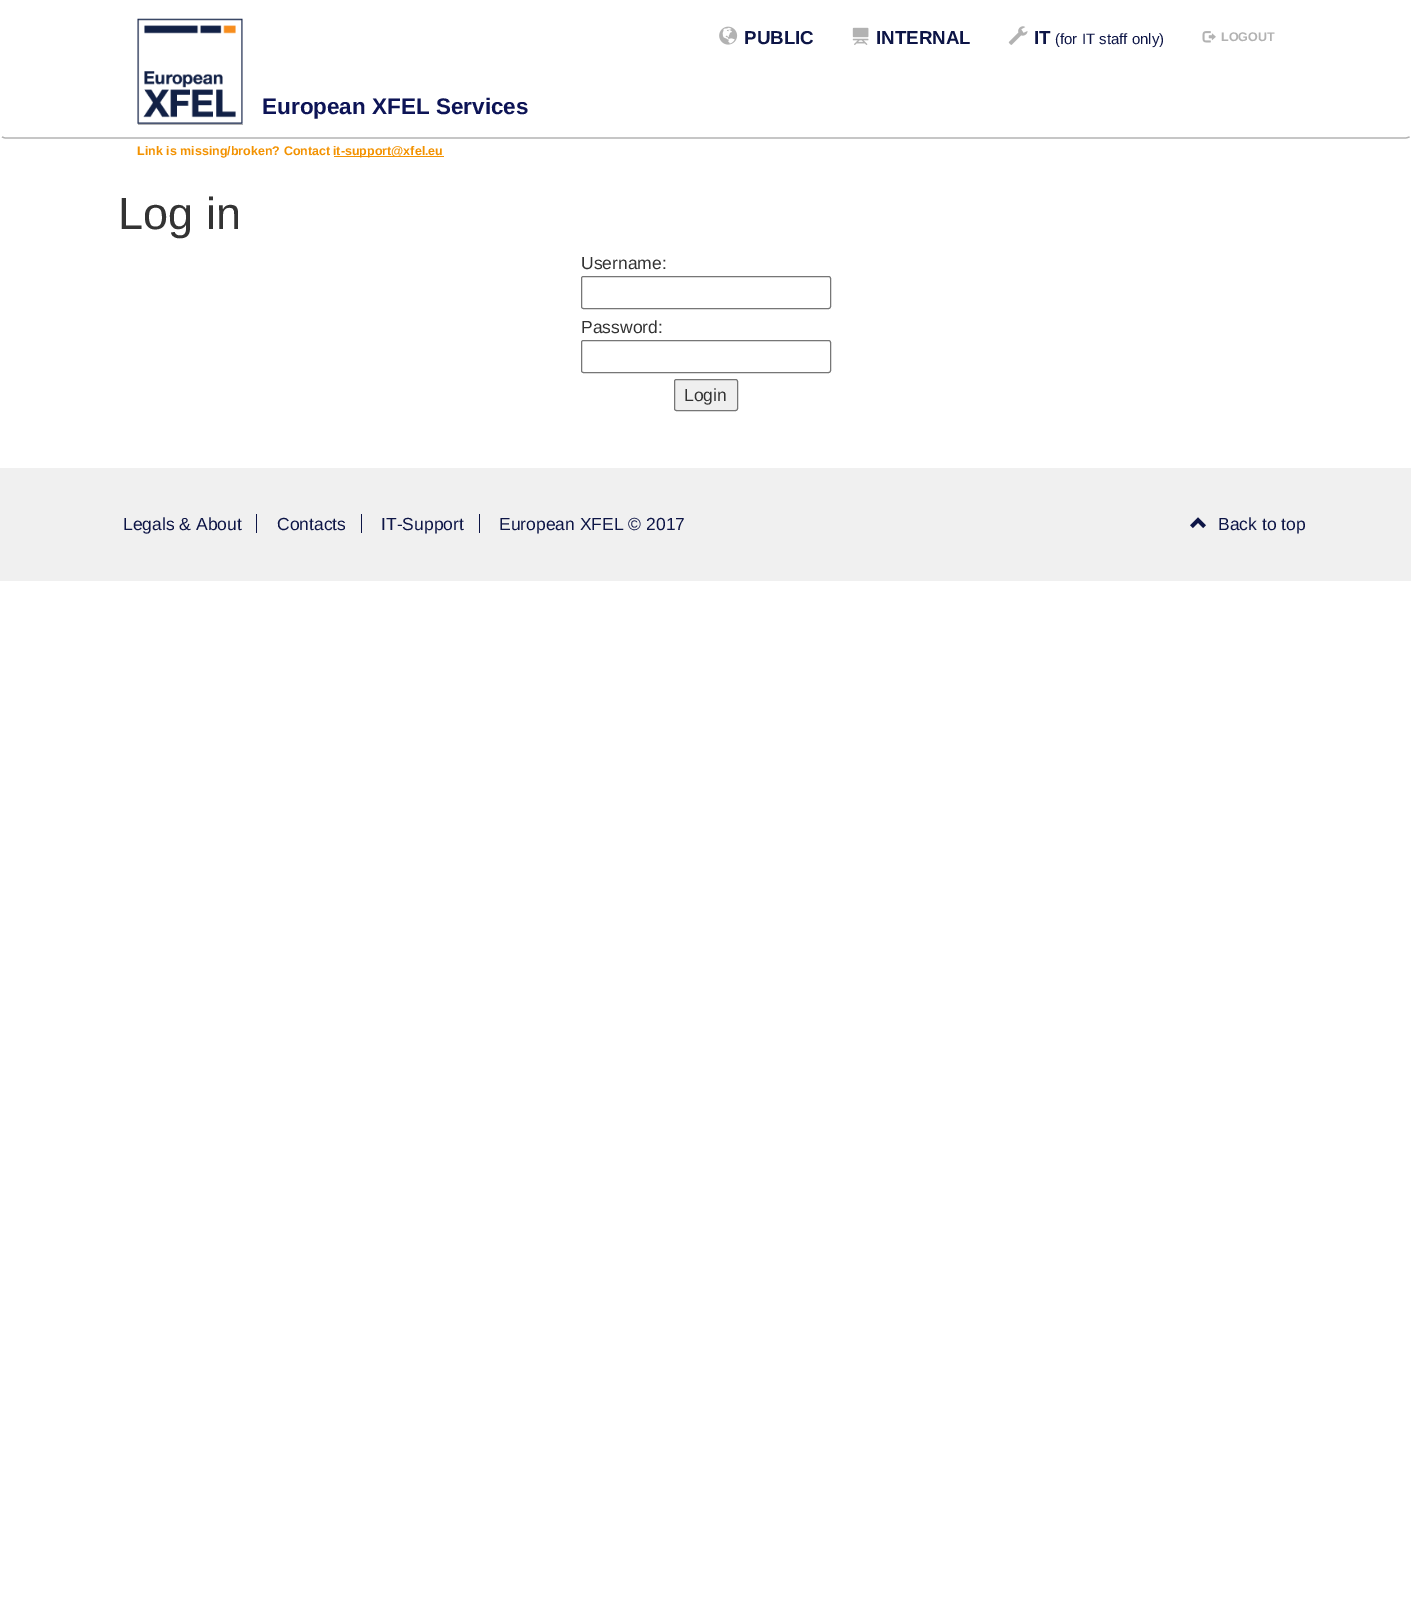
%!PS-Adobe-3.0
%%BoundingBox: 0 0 1411 1604
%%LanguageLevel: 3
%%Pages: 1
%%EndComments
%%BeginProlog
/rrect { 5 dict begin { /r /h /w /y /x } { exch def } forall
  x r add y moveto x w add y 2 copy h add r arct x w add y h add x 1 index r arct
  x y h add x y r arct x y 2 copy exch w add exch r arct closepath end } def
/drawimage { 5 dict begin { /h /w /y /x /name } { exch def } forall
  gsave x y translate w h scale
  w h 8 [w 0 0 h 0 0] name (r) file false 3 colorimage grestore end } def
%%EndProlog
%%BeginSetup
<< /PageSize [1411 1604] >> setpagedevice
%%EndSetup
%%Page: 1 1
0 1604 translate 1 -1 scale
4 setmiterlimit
1 setgray
0 0 1411 1604 rectfill
0.698 setgray
1.2 setlinewidth
newpath 1409.5 137 moveto 1406 138 lineto 5 138 lineto 2 137 lineto stroke
(images/1.raw) 719 26 19 19 drawimage
(images/2.raw) 852 27 17 18 drawimage
(images/3.raw) 1008 26 20 19 drawimage
(images/4.raw) 1202 31 14 12 drawimage
138 124 105 1 rectfill
(images/5.raw) 137 18 106 106 drawimage
0.953 0.573 0 setrgbcolor
334 156 110 1 rectfill
0.463 setgray
1 setlinewidth
581.5 276.5 249 32 2 rrect stroke
581.5 340.5 249 32 2 rrect stroke
0.937 setgray
674.5 379.5 63 31 2 rrect gsave fill grestore
0.463 setgray
stroke
0.941 setgray
0 468 1411 113 rectfill
0.051 0.082 0.275 setrgbcolor
256 514 1 19 rectfill
361 514 1 19 rectfill
479 514 1 19 rectfill
(images/6.raw) 1190 517 16 12 drawimage
/LiberationSans-Bold [18.75 0 0 -18.75 0 0] selectfont
744 44 moveto (PUBLIC) show
876 44 moveto (INTERNAL) show
1034 44 moveto (IT) show
/LiberationSans-Regular [15 0 0 -15 0 0] selectfont
1055 44 moveto (\(for IT staff only\)) show
/LiberationSans-Bold [12.5 0 0 -12.5 0 0] selectfont
0.698 setgray
1221 41 moveto (LOGOUT) show
/LiberationSans-Bold [22.5 0 0 -22.5 0 0] selectfont
0.051 0.078 0.337 setrgbcolor
262 114 moveto (European XFEL Services) show
/LiberationSans-Bold [12.5 0 0 -12.5 0 0] selectfont
0.953 0.573 0 setrgbcolor
137 155 moveto (Link is missing/broken? Contact) show
333 155 moveto (it-support@xfel.eu) show
/LiberationSans-Regular [45 0 0 -45 0 0] selectfont
0.2 setgray
118 229 moveto (Log in) show
/LiberationSans-Regular [17.5 0 0 -17.5 0 0] selectfont
581 269 moveto (Username:) show
581 333 moveto (Password:) show
684 401 moveto (Login) show
0.051 0.082 0.275 setrgbcolor
123 530 moveto (Legals & About) show
277 530 moveto (Contacts) show
381 530 moveto (IT-Support) show
499 530 moveto (European XFEL © 2017) show
1218 530 moveto (Back to top) show
showpage
%%EOF
